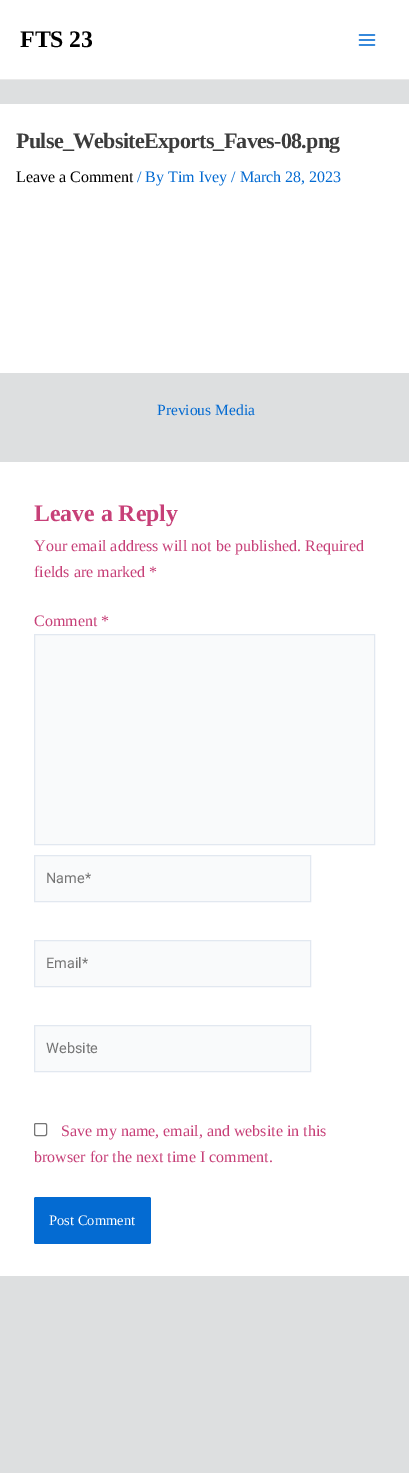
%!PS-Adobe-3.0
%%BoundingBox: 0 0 409 1473
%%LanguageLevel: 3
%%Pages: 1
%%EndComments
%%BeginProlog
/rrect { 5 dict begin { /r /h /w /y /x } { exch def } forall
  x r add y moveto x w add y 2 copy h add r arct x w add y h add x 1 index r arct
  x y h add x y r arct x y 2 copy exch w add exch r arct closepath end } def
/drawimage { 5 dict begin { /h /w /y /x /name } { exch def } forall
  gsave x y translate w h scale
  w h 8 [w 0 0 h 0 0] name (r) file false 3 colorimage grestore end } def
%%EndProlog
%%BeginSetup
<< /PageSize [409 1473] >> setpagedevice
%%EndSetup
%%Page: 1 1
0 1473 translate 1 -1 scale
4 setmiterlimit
0.867 0.875 0.878 setrgbcolor
0 0 409 1473 rectfill
1 setgray
0 0 409 79 rectfill
0.918 setgray
0 79 409 1 rectfill
(images/1.raw) 358 34 18 12 drawimage
1 setgray
0 104 409 269 rectfill
0 462 409 814 rectfill
0.976 0.98 0.984 setrgbcolor
newpath 34.5 634.5 moveto 374.5 634.5 lineto 374.5 844.5 lineto 34.5 844.5 lineto closepath gsave fill grestore
0.886 0.91 0.941 setrgbcolor
stroke
0.976 0.98 0.984 setrgbcolor
newpath 34.5 855.5 moveto 310.5 855.5 lineto 310.5 901.5 lineto 34.5 901.5 lineto closepath gsave fill grestore
0.886 0.91 0.941 setrgbcolor
stroke
0.976 0.98 0.984 setrgbcolor
newpath 34.5 940.5 moveto 310.5 940.5 lineto 310.5 986.5 lineto 34.5 986.5 lineto closepath gsave fill grestore
0.886 0.91 0.941 setrgbcolor
stroke
0.976 0.98 0.984 setrgbcolor
newpath 34.5 1025.5 moveto 310.5 1025.5 lineto 310.5 1071.5 lineto 34.5 1071.5 lineto closepath gsave fill grestore
0.886 0.91 0.941 setrgbcolor
stroke
0.463 setgray
34.5 1123.5 12 12 1.5 rrect stroke
0.016 0.42 0.824 setrgbcolor
34 1197 117 47 2 rrect fill
/LiberationSerif-Bold [23.75 0 0 -23.75 0 0] selectfont
0 setgray
20 47 moveto (FTS 23) show
/LiberationSerif-Bold [22 0 0 -22 0 0] selectfont
0.235 setgray
16 148 moveto -0.7 0 (Pulse_WebsiteExports_Faves-08.png) ashow
/LiberationSerif-Regular [16 0 0 -16 0 0] selectfont
0 setgray
16 182 moveto (Leave a Comment) show
0.016 0.42 0.824 setrgbcolor
137 182 moveto (/ By Tim Ivey / March 28, 2023) show
/LiberationSerif-Regular [15.5 0 0 -15.5 0 0] selectfont
157 415 moveto (Previous Media) show
/LiberationSerif-Bold [23.75 0 0 -23.75 0 0] selectfont
0.78 0.251 0.471 setrgbcolor
34 521 moveto (Leave a Reply) show
/LiberationSerif-Regular [16 0 0 -16 0 0] selectfont
34 551 moveto (Your email address will not be published. Required) show
34 577 moveto (fields are marked *) show
34 626 moveto (Comment *) show
/Roboto-Regular [14.5 0 0 -14.5 0 0] selectfont
0.459 setgray
46 883 moveto (Name*) show
46 968 moveto (Email*) show
46 1053 moveto (Website) show
/LiberationSerif-Regular [16 0 0 -16 0 0] selectfont
0.78 0.251 0.471 setrgbcolor
61 1136 moveto (Save my name, email, and website in this) show
34 1162 moveto (browser for the next time I comment.) show
/LiberationSerif-Regular [14.5 0 0 -14.5 0 0] selectfont
1 setgray
49 1225 moveto (Post Comment) show
showpage
%%EOF
